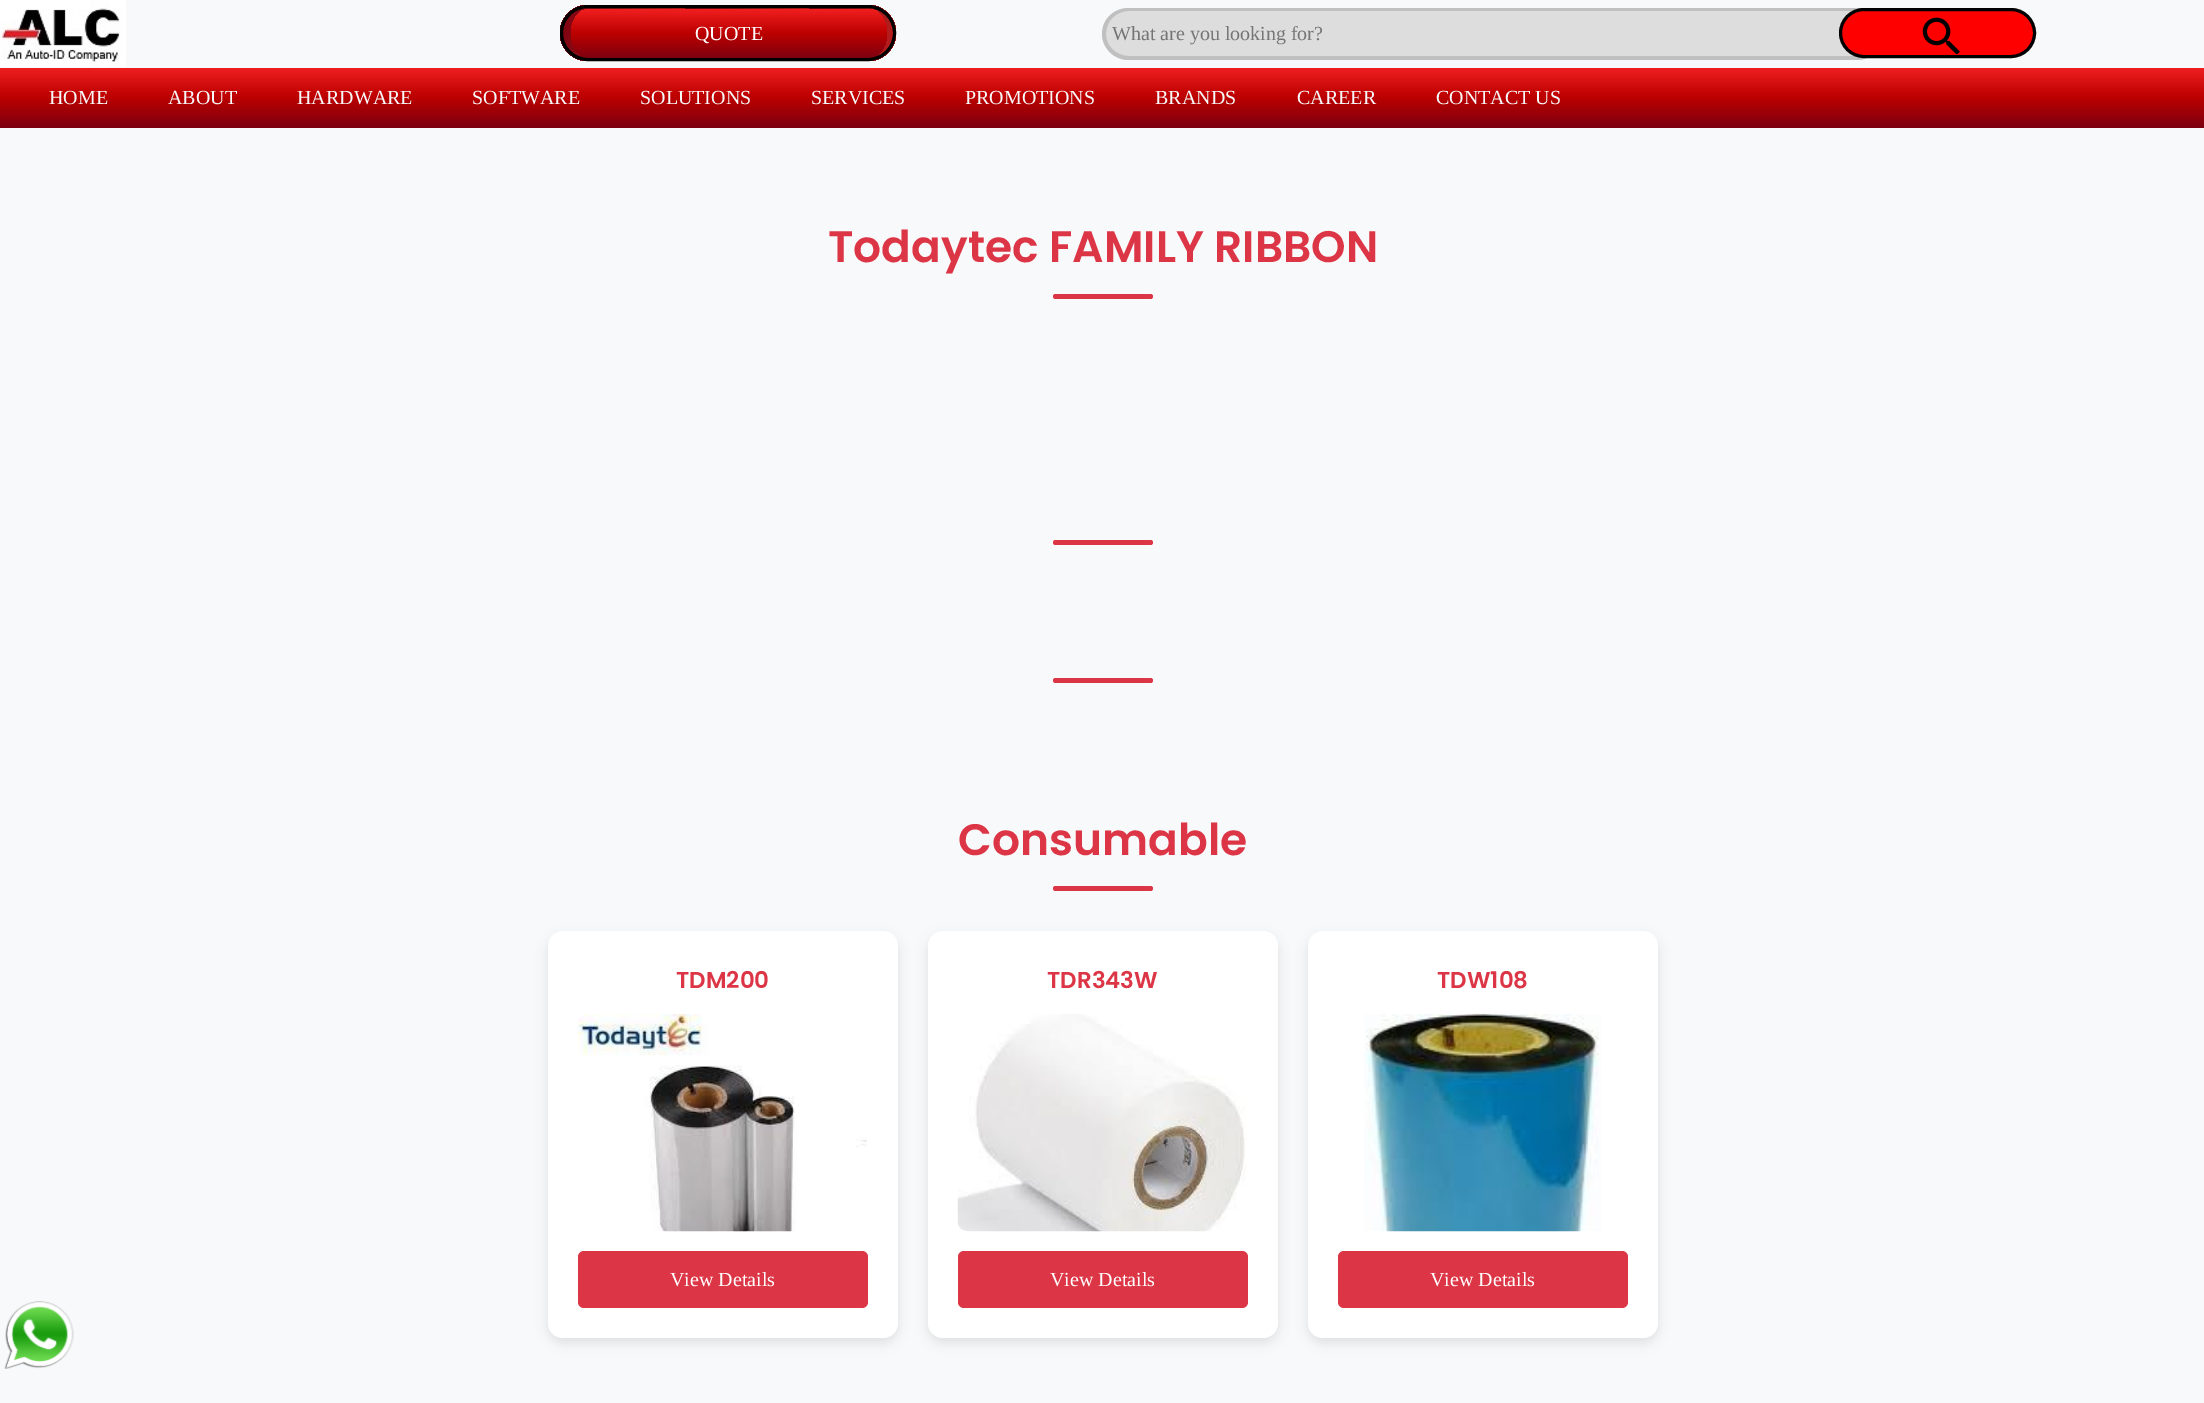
%!PS-Adobe-3.0
%%BoundingBox: 0 0 2204 1403
%%LanguageLevel: 3
%%Pages: 1
%%EndComments
%%BeginProlog
/setalpha { dup .setfillconstantalpha .setstrokeconstantalpha } def
/rrect { 5 dict begin { /r /h /w /y /x } { exch def } forall
  x r add y moveto x w add y 2 copy h add r arct x w add y h add x 1 index r arct
  x y h add x y r arct x y 2 copy exch w add exch r arct closepath end } def
/softshadow { 12 dict begin { /a /b /q /h /w /y /x } { exch def } forall gsave /was 0 def
  9 -2 -9 { dup b mul 4 div /e exch def 1 sub .425 mul 2.718 exch exp 1 add a .99 .min exch div /now exch def
    1 1 now sub 1 was sub div sub setalpha /was now def
    w h .min e 2 mul add 0 gt { x e sub y e sub w e 2 mul add h e 2 mul add
      q e add b .6 mul add w h .min 2 div e add .min 0 .max rrect fill } if } for grestore end } def
/drawimage { 5 dict begin { /h /w /y /x /name } { exch def } forall
  gsave x y translate w h scale
  w h 8 [w 0 0 h 0 0] name (r) file false 3 colorimage grestore end } def
%%EndProlog
%%BeginSetup
<< /PageSize [2204 1403] /PageUsesTransparency true >> setpagedevice
%%EndSetup
%%Page: 1 1
0 .pushpdf14devicefilter
0 1403 translate 1 -1 scale
4 setmiterlimit
0.973 0.976 0.98 setrgbcolor
0 0 2204 1403 rectfill
(images/1.raw) 0 0 126 67 drawimage
gsave newpath 588 5 moveto 685 5 lineto 685 61 lineto 588 61 lineto 572.5 61 560 48.5 560 33 curveto 560 17.5 572.5 5 588 5 curveto closepath clip newpath
<< /ShadingType 2 /ColorSpace /DeviceRGB /Coords [687 45 557 22] /Extend [true true] /Function << /FunctionType 3 /Domain [0 1] /Functions [<< /FunctionType 2 /Domain [0 1] /C0 [0.945 0.122 0.125] /C1 [0.612 0.11 0.11] /N 1 >> << /FunctionType 2 /Domain [0 1] /C0 [0.612 0.11 0.11] /C1 [0.49 0 0.063] /N 1 >>] /Bounds [0.5] /Encode [0 1 0 1] >> >> shfill grestore
gsave newpath 685 8 moveto 809 8 lineto 809 9 lineto 685 9 lineto closepath clip newpath
<< /ShadingType 2 /ColorSpace /DeviceRGB /Coords [812 45 681 22] /Extend [true true] /Function << /FunctionType 3 /Domain [0 1] /Functions [<< /FunctionType 2 /Domain [0 1] /C0 [0.945 0.122 0.125] /C1 [0.612 0.11 0.11] /N 1 >> << /FunctionType 2 /Domain [0 1] /C0 [0.612 0.11 0.11] /C1 [0.49 0 0.063] /N 1 >>] /Bounds [0.5] /Encode [0 1 0 1] >> >> shfill grestore
gsave newpath 809 5 moveto 868 5 lineto 883.5 5 896 17.5 896 33 curveto 896 48.5 883.5 61 868 61 curveto 809 61 lineto closepath clip newpath
<< /ShadingType 2 /ColorSpace /DeviceRGB /Coords [936 45 806 22] /Extend [true true] /Function << /FunctionType 3 /Domain [0 1] /Functions [<< /FunctionType 2 /Domain [0 1] /C0 [0.945 0.122 0.125] /C1 [0.612 0.11 0.11] /N 1 >> << /FunctionType 2 /Domain [0 1] /C0 [0.612 0.11 0.11] /C1 [0.49 0 0.063] /N 1 >>] /Bounds [0.5] /Encode [0 1 0 1] >> >> shfill grestore
gsave newpath 589 9 moveto 869 9 lineto 879 9 887 20 887 33 curveto 887 47 879 58 869 58 curveto 589 58 lineto 579 58 571 47 571 33 curveto 571 20 579 9 589 9 curveto closepath clip newpath
<< /ShadingType 2 /ColorSpace /DeviceRGB /Coords [729 9 729 58] /Extend [true true] /Function << /FunctionType 3 /Domain [0 1] /Functions [<< /FunctionType 2 /Domain [0 1] /C0 [0.945 0.122 0.125] /C1 [0.737 0 0] /N 1 >> << /FunctionType 2 /Domain [0 1] /C0 [0.737 0 0] /C1 [0.49 0 0.063] /N 1 >>] /Bounds [0.5] /Encode [0 1 0 1] >> >> shfill grestore
0 setgray
3 setlinewidth
561.5 6.5 333 53 26.5 rrect stroke
0.867 setgray
1103 8 780 52 26 rrect fill
0.753 setgray
newpath 1129 8 moveto 1856 8 lineto 1871 8 1882 19 1882 34 curveto 1882 48 1871 60 1856 60 curveto 1129 60 lineto 1114 60 1102 48 1102 34 curveto 1102 19 1114 8 1129 8 curveto closepath 1129 11 moveto 1856 11 lineto 1871 11 1882 21 1882 34 curveto 1882 46 1871 56 1856 56 curveto 1129 56 lineto 1116 56 1106 46 1106 34 curveto 1106 21 1116 11 1129 11 curveto closepath eofill
1 0 0 setrgbcolor
1840.5 9.5 194 47 23.5 rrect gsave fill grestore
0 setgray
stroke
(images/2.raw) 1922 17 38 37 drawimage
gsave newpath 0 68 moveto 2204 68 lineto 2204 128 lineto 0 128 lineto closepath clip newpath
<< /ShadingType 2 /ColorSpace /DeviceRGB /Coords [1103 67 1103 127] /Extend [true true] /Function << /FunctionType 3 /Domain [0 1] /Functions [<< /FunctionType 2 /Domain [0 1] /C0 [0.945 0.122 0.125] /C1 [0.737 0 0] /N 1 >> << /FunctionType 2 /Domain [0 1] /C0 [0.737 0 0] /C1 [0.49 0 0.063] /N 1 >>] /Bounds [0.5] /Encode [0 1 0 1] >> >> shfill grestore
0.863 0.208 0.271 setrgbcolor
1053 294 100 5 2.5 rrect fill
1053 540 100 5 2.5 rrect fill
1053 678 100 5 2.5 rrect fill
1053 886 100 5 2.5 rrect fill
0 setgray
548 936 350 407 15 6 0.1 softshadow
1 setgray
548 931 350 407 15 rrect fill
(images/3.raw) 577 1014 290 218 drawimage
0.863 0.208 0.271 setrgbcolor
578 1251 290 57 6 rrect fill
0 setgray
928 936 350 407 15 6 0.1 softshadow
1 setgray
928 931 350 407 15 rrect fill
(images/4.raw) 957 1014 289 218 drawimage
0.863 0.208 0.271 setrgbcolor
958 1251 290 57 6 rrect fill
0 setgray
1308 936 350 407 15 6 0.1 softshadow
1 setgray
1308 931 350 407 15 rrect fill
(images/5.raw) 1364 1013 237 219 drawimage
0.863 0.208 0.271 setrgbcolor
1338 1251 290 57 6 rrect fill
(images/6.raw) 4 1301 70 68 drawimage
/LiberationSerif-Regular [20 0 0 -20 0 0] selectfont
1 setgray
695 40 moveto (QUOTE) show
0.459 setgray
1112 40 moveto (What are you looking for?) show
0.973 0.976 0.98 setrgbcolor
49 104 moveto (HOME) show
168 104 moveto (ABOUT) show
297 104 moveto (HARDWARE) show
472 104 moveto (SOFTWARE) show
640 104 moveto (SOLUTIONS) show
811 104 moveto (SERVICES) show
965 104 moveto (PROMOTIONS) show
1155 104 moveto (BRANDS) show
1297 104 moveto (CAREER) show
1436 104 moveto (CONTACT US) show
/Poppins-SemiBold [44 0 0 -44 0 0] selectfont
0.863 0.208 0.271 setrgbcolor
828 262 moveto (Todaytec FAMILY RIBBON) show
958 855 moveto (Consumable) show
/Poppins-SemiBold [23 0 0 -23 0 0] selectfont
676 988 moveto (TDM200) show
/LiberationSerif-Regular [20 0 0 -20 0 0] selectfont
1 setgray
670 1286 moveto (View Details) show
/Poppins-SemiBold [23 0 0 -23 0 0] selectfont
0.863 0.208 0.271 setrgbcolor
1047 988 moveto (TDR343W) show
/LiberationSerif-Regular [20 0 0 -20 0 0] selectfont
1 setgray
1050 1286 moveto (View Details) show
/Poppins-SemiBold [23 0 0 -23 0 0] selectfont
0.863 0.208 0.271 setrgbcolor
1437 988 moveto (TDW108) show
/LiberationSerif-Regular [20 0 0 -20 0 0] selectfont
1 setgray
1430 1286 moveto (View Details) show
.poppdf14devicefilter showpage
%%EOF
